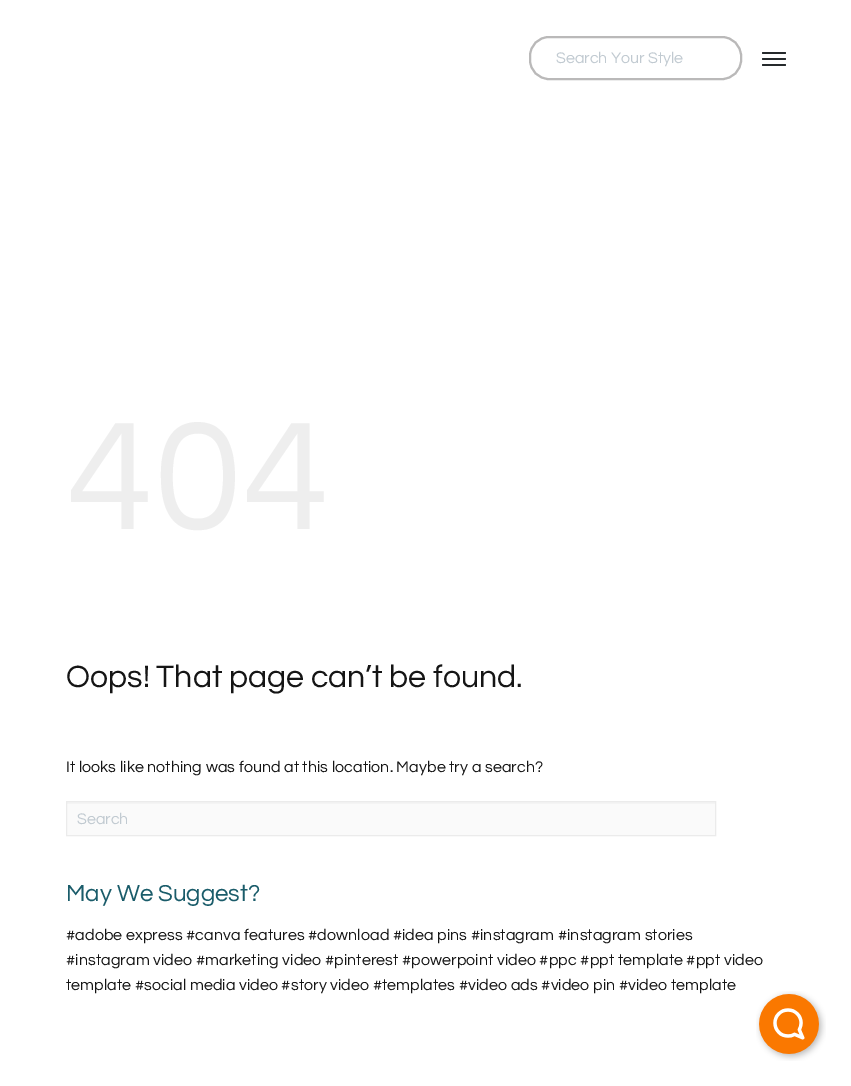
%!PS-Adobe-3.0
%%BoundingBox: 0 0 851 1086
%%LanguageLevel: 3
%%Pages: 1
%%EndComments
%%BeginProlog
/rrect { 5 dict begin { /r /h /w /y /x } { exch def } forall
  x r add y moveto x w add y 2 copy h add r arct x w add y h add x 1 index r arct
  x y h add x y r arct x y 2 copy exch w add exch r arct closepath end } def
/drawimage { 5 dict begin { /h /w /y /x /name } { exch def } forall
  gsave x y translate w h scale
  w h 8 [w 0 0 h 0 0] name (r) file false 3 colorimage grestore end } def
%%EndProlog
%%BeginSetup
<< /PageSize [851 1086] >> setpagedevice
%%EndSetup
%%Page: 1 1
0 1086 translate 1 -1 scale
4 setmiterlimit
1 setgray
0 0 851 1086 rectfill
0.729 0.725 0.725 setrgbcolor
2 setlinewidth
530 37 211 42 19 rrect stroke
0.149 0.165 0.173 setrgbcolor
762 52 24 2 1 rrect fill
762 58 24 2 1 rrect fill
762 64 24 2 1 rrect fill
0.98 setgray
67 804 648 31 rectfill
0.957 setgray
67 802 648 2 rectfill
0.922 setgray
1 setlinewidth
66.5 801.5 649 34 rectstroke
(images/1.raw) 756 991 70 70 drawimage
/Questrial-Regular [16 0 0 -16 0 0] selectfont
0.757 0.792 0.82 setrgbcolor
556 63 moveto (Search Your Style) show
/Questrial-Regular [160 0 0 -160 0 0] selectfont
0.933 setgray
66 529 moveto (404) show
/Questrial-Regular [32 0 0 -32 0 0] selectfont
0.082 setgray
66 687 moveto (Oops! That page can’t be found.) show
/Questrial-Regular [16 0 0 -16 0 0] selectfont
66 772 moveto 0.1 0 (It looks like nothing was found at this location. Maybe try a search?) ashow
0.757 0.792 0.82 setrgbcolor
77 824 moveto (Search) show
/Questrial-Regular [24 0 0 -24 0 0] selectfont
0.102 0.361 0.416 setrgbcolor
66 901 moveto (May We Suggest?) show
/Questrial-Regular [16 0 0 -16 0 0] selectfont
0.082 setgray
66 940 moveto 0.1 0 (#adobe express #canva features #download #idea pins #instagram #instagram stories) ashow
66 965 moveto 0.1 0 (#instagram video #marketing video #pinterest #powerpoint video #ppc #ppt template #ppt video) ashow
66 990 moveto 0.1 0 (template #social media video #story video #templates #video ads #video pin #video template) ashow
showpage
%%EOF
